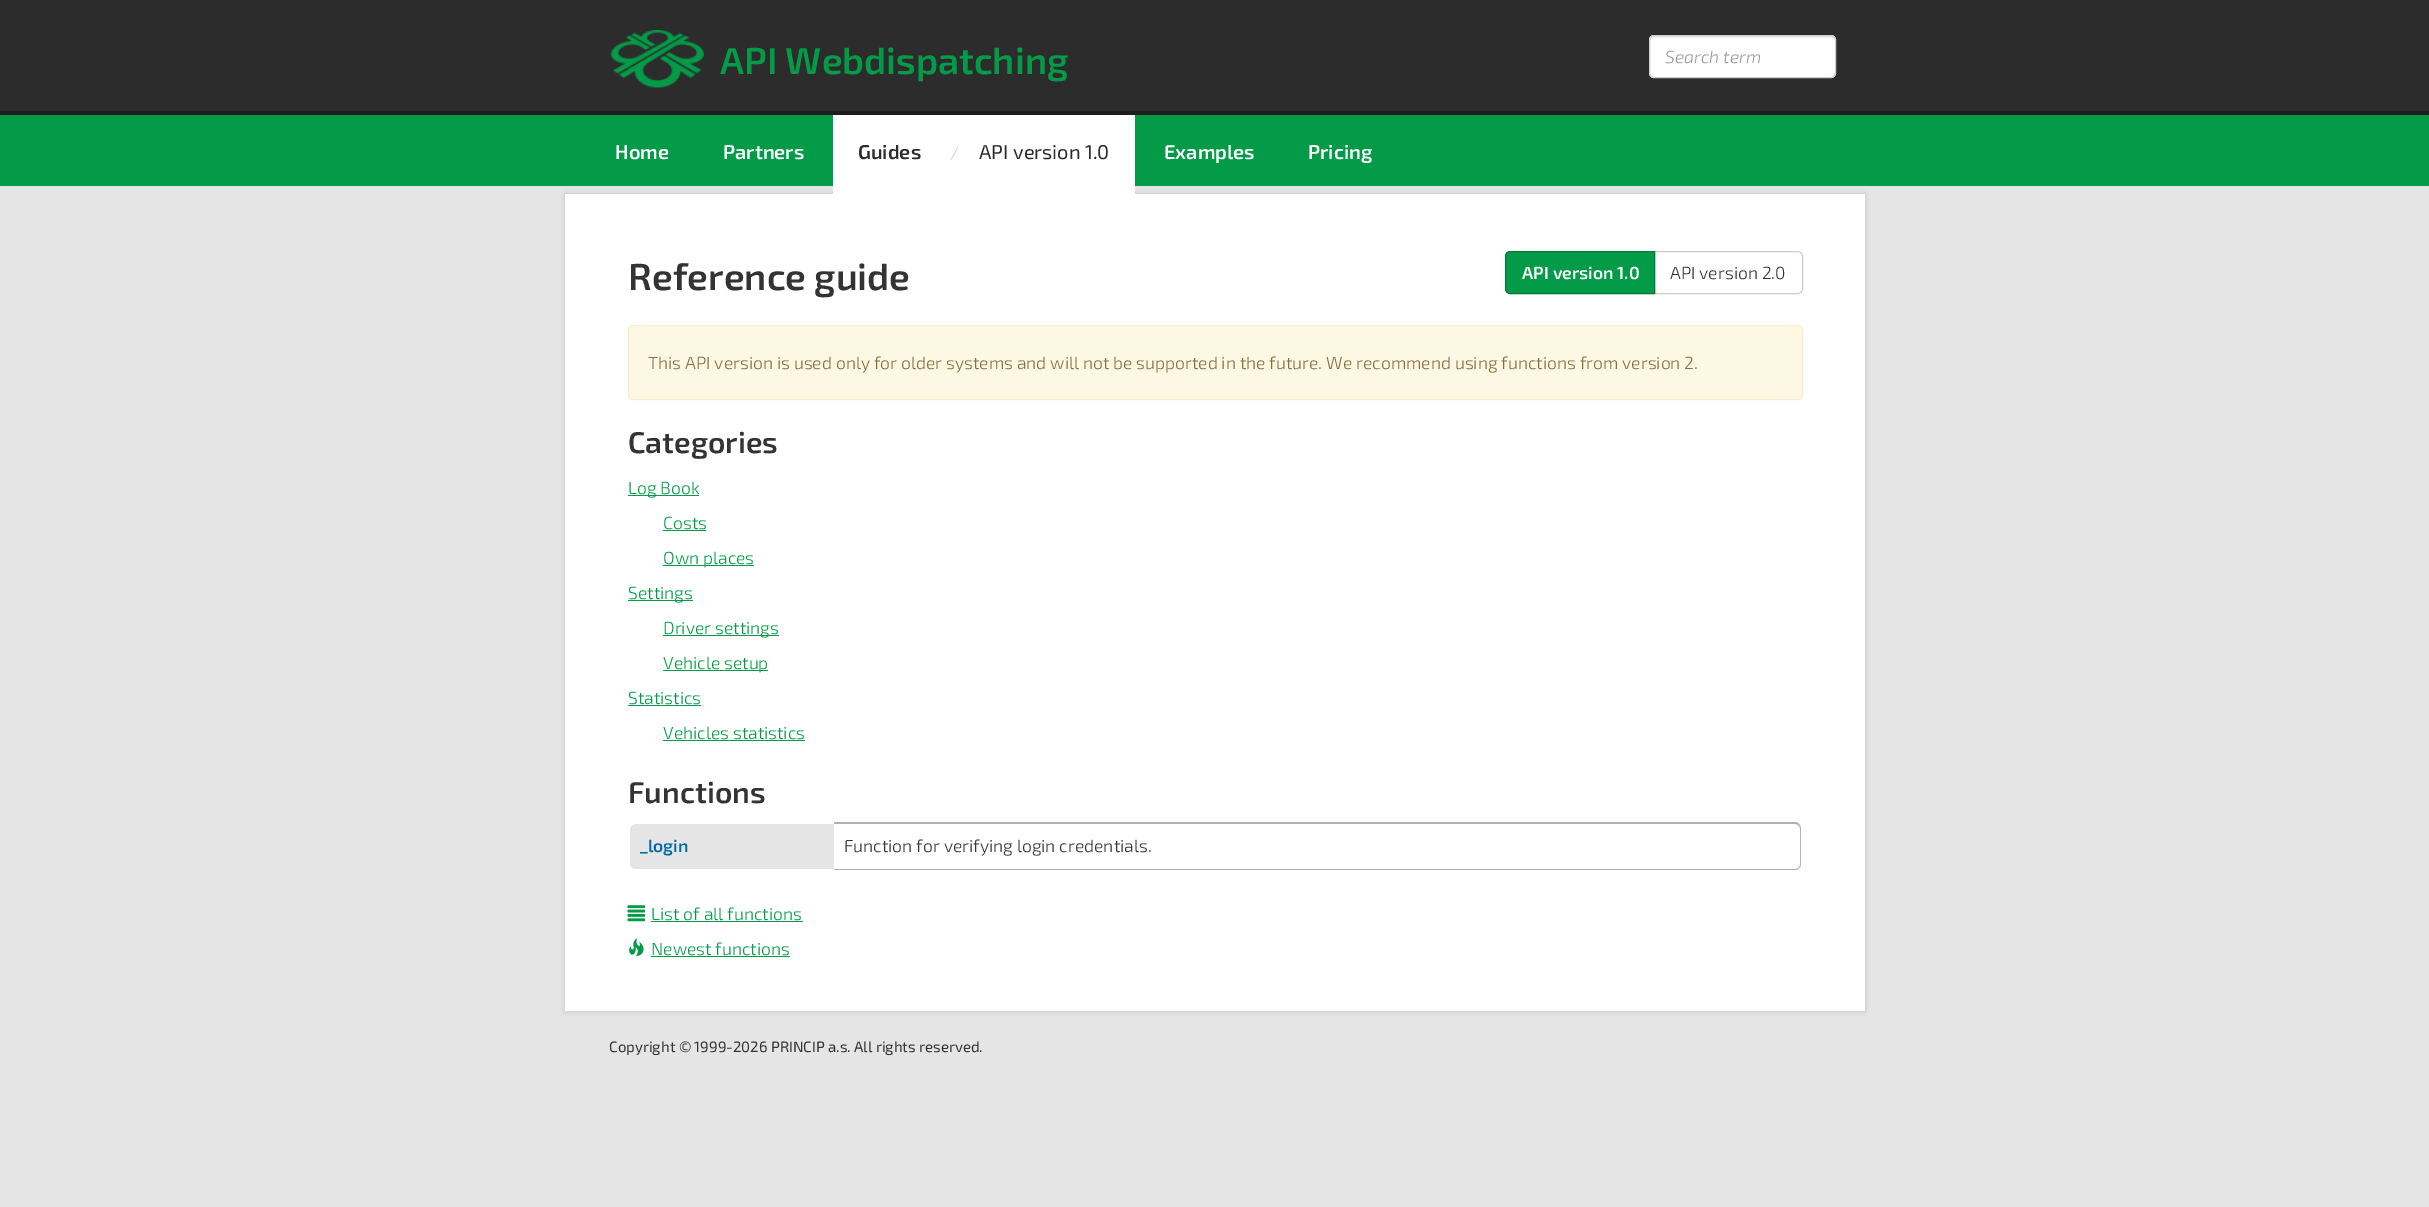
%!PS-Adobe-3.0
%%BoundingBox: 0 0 2429 1207
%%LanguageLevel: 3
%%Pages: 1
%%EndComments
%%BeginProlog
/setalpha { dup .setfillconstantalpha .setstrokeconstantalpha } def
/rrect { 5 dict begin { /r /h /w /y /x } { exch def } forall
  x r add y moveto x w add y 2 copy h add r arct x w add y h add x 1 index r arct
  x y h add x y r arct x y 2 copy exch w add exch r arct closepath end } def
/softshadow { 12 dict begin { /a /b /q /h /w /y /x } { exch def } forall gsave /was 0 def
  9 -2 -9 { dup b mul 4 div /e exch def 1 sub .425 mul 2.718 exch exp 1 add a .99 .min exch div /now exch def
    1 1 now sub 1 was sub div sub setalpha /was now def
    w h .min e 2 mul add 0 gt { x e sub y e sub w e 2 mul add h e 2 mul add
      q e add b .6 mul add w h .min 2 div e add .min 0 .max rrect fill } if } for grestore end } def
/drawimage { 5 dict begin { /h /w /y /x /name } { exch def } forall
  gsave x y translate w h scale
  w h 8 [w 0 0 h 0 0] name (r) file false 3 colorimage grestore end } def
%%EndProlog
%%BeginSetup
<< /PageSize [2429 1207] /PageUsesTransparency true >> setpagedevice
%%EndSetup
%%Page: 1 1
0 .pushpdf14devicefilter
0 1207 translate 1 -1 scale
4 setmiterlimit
0.898 setgray
0 0 2429 1207 rectfill
0.173 setgray
0 0 2429 111 rectfill
0.114 setgray
0 111 2429 4 rectfill
(images/1.raw) 611 30 93 58 drawimage
1 setgray
1649 35 187 43 5 rrect fill
0.925 setgray
newpath 1654 38 moveto 1831 38 lineto 1833 38 1835 39 1835 41 curveto 1835 38 1834 36 1831 36 curveto 1653 36 lineto 1651 37 1650 39 1650 41 curveto 1650 39 1652 38 1654 38 curveto closepath fill
0.8 setgray
1649.5 35.5 186 42 4.5 rrect stroke
0.012 0.608 0.278 setrgbcolor
0 115 2429 71 rectfill
0 setgray
565 194 1300 817 0 2.5 0.16 softshadow
1 setgray
833 115 302 79 rectfill
565 194 1300 817 rectfill
0.8 setgray
newpath 1654.5 251.5 moveto 1798 251.5 lineto 1800.5 251.5 1802.5 253.5 1802.5 256 curveto 1802.5 289 lineto 1802.5 291.5 1800.5 293.5 1798 293.5 curveto 1654.5 293.5 lineto closepath stroke
0.012 0.608 0.278 setrgbcolor
newpath 1510 251.5 moveto 1654.5 251.5 lineto 1654.5 293.5 lineto 1510 293.5 lineto 1507.5 293.5 1505.5 291.5 1505.5 289 curveto 1505.5 256 lineto 1505.5 253.5 1507.5 251.5 1510 251.5 curveto closepath gsave fill grestore
0 0.471 0.212 setrgbcolor
stroke
0.988 0.973 0.89 setrgbcolor
628.5 325.5 1174 74 4.5 rrect gsave fill grestore
0.98 0.922 0.8 setrgbcolor
stroke
0.012 0.608 0.278 setrgbcolor
628 495 71 1 rectfill
663 530 43 1 rectfill
663 565 91 1 rectfill
628 600 65 1 rectfill
663 635 116 1 rectfill
663 670 105 1 rectfill
628 705 73 1 rectfill
663 740 142 1 rectfill
0.898 setgray
newpath 635 824 moveto 834 824 lineto 834 869 lineto 635 869 lineto 632 869 630 867 630 864 curveto 630 829 lineto 630 826 632 824 635 824 curveto closepath fill
1 setgray
newpath 635 822 moveto 834 822 lineto 834 870 lineto 635 870 lineto 632 870 629 867 629 864 curveto 629 829 lineto 629 825 632 822 635 822 curveto closepath 635 824 moveto 834 824 lineto 834 869 lineto 635 869 lineto 632 869 630 867 630 864 curveto 630 829 lineto 630 826 632 824 635 824 curveto closepath eofill
0.698 setgray
newpath 834 822 moveto 1795 822 lineto 1798 822 1801 825 1801 829 curveto 1801 864 lineto 1801 867 1798 870 1795 870 curveto 834 870 lineto closepath 834 824 moveto 1795 824 lineto 1798 824 1800 826 1800 829 curveto 1800 864 lineto 1800 867 1798 869 1795 869 curveto 834 869 lineto closepath eofill
(images/2.raw) 627 905 18 17 drawimage
0.012 0.608 0.278 setrgbcolor
651 921 152 1 rectfill
(images/3.raw) 629 938 15 18 drawimage
651 956 139 1 rectfill
/Exo2-SemiBold [37.5 0 0 -37.5 0 0] selectfont
720 74 moveto (API Webdispatching) show
/Exo2-LightItalic [17.5 0 0 -17.5 0 0] selectfont
0.6 setgray
1665 63 moveto (Search term) show
/Exo2-SemiBold [20 0 0 -20 0 0] selectfont
1 setgray
615 159 moveto (Home) show
723 159 moveto (Partners) show
0.173 setgray
858 159 moveto (Guides) show
/Exo2-Light [17.5 0 0 -17.5 0 0] selectfont
0.8 setgray
950 159 moveto (/) show
/Exo2-Regular [20 0 0 -20 0 0] selectfont
0.173 setgray
979 159 moveto (API version 1.0) show
/Exo2-SemiBold [20 0 0 -20 0 0] selectfont
1 setgray
1164 159 moveto (Examples) show
1308 159 moveto (Pricing) show
/Exo2-SemiBold [37.5 0 0 -37.5 0 0] selectfont
0.2 setgray
628 290 moveto (Reference guide) show
/Exo2-SemiBold [17.5 0 0 -17.5 0 0] selectfont
1 setgray
1522 279 moveto (API version 1.0) show
/Exo2-Light [17.5 0 0 -17.5 0 0] selectfont
0.2 setgray
1670 279 moveto (API version 2.0) show
0.541 0.427 0.231 setrgbcolor
648 369 moveto (This API version is used only for older systems and will not be supported in the future. We recommend using functions from version 2.) show
/Exo2-SemiBold [30 0 0 -30 0 0] selectfont
0.2 setgray
628 453 moveto (Categories) show
/Exo2-Light [17.5 0 0 -17.5 0 0] selectfont
0.012 0.608 0.278 setrgbcolor
628 494 moveto (Log Book) show
663 529 moveto (Costs) show
663 564 moveto (Own places) show
628 599 moveto (Settings) show
663 634 moveto (Driver settings) show
663 669 moveto (Vehicle setup) show
628 704 moveto (Statistics) show
663 739 moveto (Vehicles statistics) show
/Exo2-SemiBold [30 0 0 -30 0 0] selectfont
0.2 setgray
628 803 moveto (Functions) show
/Exo2-SemiBold [17.5 0 0 -17.5 0 0] selectfont
0.004 0.416 0.671 setrgbcolor
640 852 moveto (_login) show
/Exo2-Light [17.5 0 0 -17.5 0 0] selectfont
0.2 setgray
844 852 moveto (Function for verifying login credentials.) show
0.012 0.608 0.278 setrgbcolor
651 920 moveto (List of all functions) show
651 955 moveto (Newest functions) show
/Exo2-Regular [15 0 0 -15 0 0] selectfont
0.2 setgray
609 1052 moveto (Copyright © 1999-2026 PRINCIP a.s. All rights reserved.) show
.poppdf14devicefilter showpage
%%EOF
